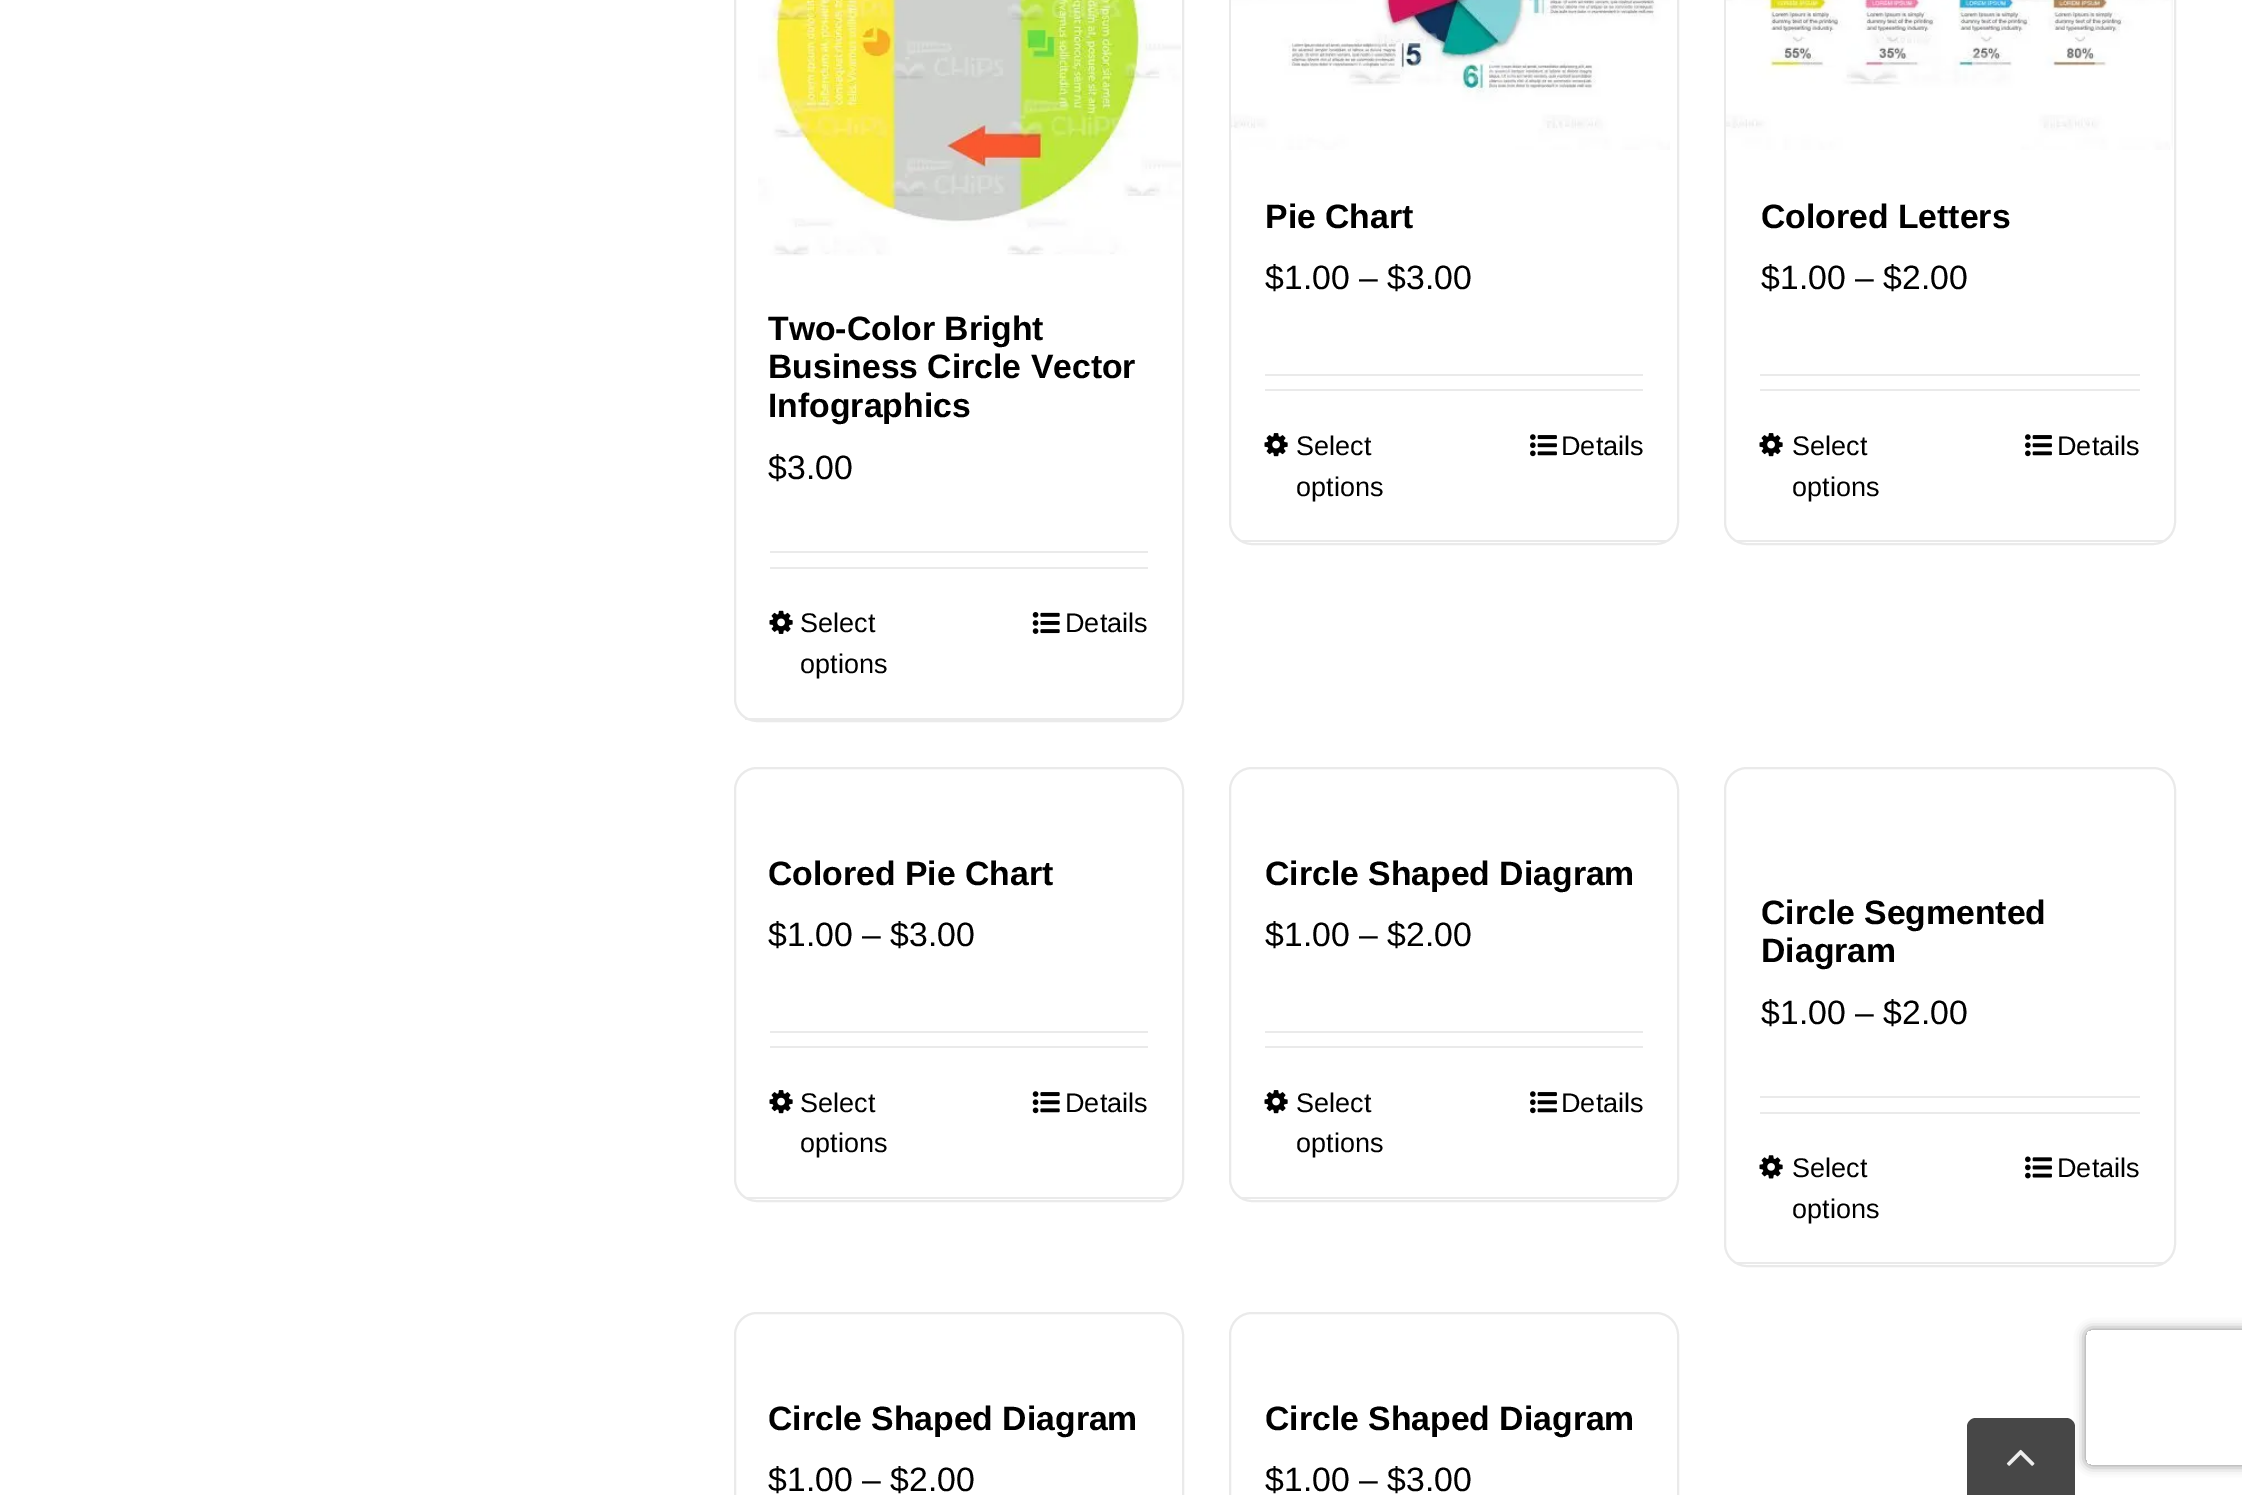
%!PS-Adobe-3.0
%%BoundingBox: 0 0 2242 1495
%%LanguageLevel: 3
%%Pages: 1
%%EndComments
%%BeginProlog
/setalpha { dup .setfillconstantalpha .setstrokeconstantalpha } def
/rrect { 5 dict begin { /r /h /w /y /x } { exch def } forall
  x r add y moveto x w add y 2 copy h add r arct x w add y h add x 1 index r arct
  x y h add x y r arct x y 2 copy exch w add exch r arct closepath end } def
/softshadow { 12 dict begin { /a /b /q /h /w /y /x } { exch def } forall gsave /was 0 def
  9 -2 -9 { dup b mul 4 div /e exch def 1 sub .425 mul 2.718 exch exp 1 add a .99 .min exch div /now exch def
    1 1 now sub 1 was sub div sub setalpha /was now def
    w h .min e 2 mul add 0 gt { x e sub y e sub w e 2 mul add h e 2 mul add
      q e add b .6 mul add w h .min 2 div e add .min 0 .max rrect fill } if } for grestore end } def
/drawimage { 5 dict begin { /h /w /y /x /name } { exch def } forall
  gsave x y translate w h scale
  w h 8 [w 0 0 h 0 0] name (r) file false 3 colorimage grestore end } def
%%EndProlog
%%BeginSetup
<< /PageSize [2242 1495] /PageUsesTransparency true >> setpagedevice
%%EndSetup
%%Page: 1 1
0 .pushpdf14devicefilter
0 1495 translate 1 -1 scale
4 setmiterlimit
1 setgray
0 0 2242 1495 rectfill
0.918 setgray
2 setlinewidth
735 -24 448 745 22 rrect stroke
745 718 427 2 rectfill
(images/1.raw) 758 0 423 256 drawimage
770 551 378 2 rectfill
770 567 378 2 rectfill
(images/2.raw) 769 610 24 24 drawimage
(images/3.raw) 1032 612 28 22 drawimage
1230 -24 448 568 22 rrect stroke
1240 540 427 2 rectfill
(images/4.raw) 1231 0 439 150 drawimage
1265 374 378 2 rectfill
1265 389 378 2 rectfill
(images/5.raw) 1264 433 24 24 drawimage
(images/6.raw) 1530 434 27 23 drawimage
1725 -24 450 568 22 rrect stroke
1735 540 430 2 rectfill
(images/7.raw) 1726 0 447 150 drawimage
1760 374 380 2 rectfill
1760 389 380 2 rectfill
(images/5.raw) 1759 433 24 24 drawimage
(images/6.raw) 2025 434 27 23 drawimage
735 768 448 433 22 rrect stroke
745 1197 427 2 rectfill
770 1031 378 2 rectfill
770 1046 378 2 rectfill
(images/5.raw) 769 1090 24 24 drawimage
(images/8.raw) 1032 1091 28 23 drawimage
1230 768 448 433 22 rrect stroke
1240 1197 427 2 rectfill
1265 1031 378 2 rectfill
1265 1046 378 2 rectfill
(images/5.raw) 1264 1090 24 24 drawimage
(images/6.raw) 1530 1091 27 23 drawimage
1725 768 450 498 22 rrect stroke
1735 1262 430 2 rectfill
1760 1096 380 2 rectfill
1760 1112 380 2 rectfill
(images/9.raw) 1759 1155 24 24 drawimage
(images/10.raw) 2025 1156 27 23 drawimage
735 1313 448 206 22 rrect stroke
1230 1313 448 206 22 rrect stroke
gsave
newpath 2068 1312 moveto 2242 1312 lineto 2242 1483 lineto 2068 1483 lineto closepath 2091 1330 moveto 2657 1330 lineto 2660 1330 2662 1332 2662 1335 curveto 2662 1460 lineto 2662 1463 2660 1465 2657 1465 curveto 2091 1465 lineto 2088 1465 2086 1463 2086 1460 curveto 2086 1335 lineto 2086 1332 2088 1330 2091 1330 curveto closepath eoclip newpath
0.502 setgray
2086 1330 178 135 5 5.5 1 softshadow
grestore
0.278 setgray
newpath 1976 1418 moveto 2066 1418 lineto 2071 1418 2075 1422 2075 1427 curveto 2075 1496 lineto 1967 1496 lineto 1967 1427 lineto 1967 1422 1971 1418 1976 1418 curveto closepath fill
(images/11.raw) 2006 1449 29 17 drawimage
/LiberationSans-Bold [33.75 0 0 -33.75 0 0] selectfont
0 setgray
768 340 moveto (Two-Color Bright) show
768 378 moveto (Business Circle Vector) show
768 417 moveto (Infographics) show
/LiberationSans-Regular [33.75 0 0 -33.75 0 0] selectfont
768 479 moveto ($3.00) show
/LiberationSans-Regular [27 0 0 -27 0 0] selectfont
800 632 moveto (Select) show
800 673 moveto (options) show
1065 632 moveto (Details) show
/LiberationSans-Bold [33.75 0 0 -33.75 0 0] selectfont
1265 228 moveto (Pie Chart) show
/LiberationSans-Regular [33.75 0 0 -33.75 0 0] selectfont
1265 289 moveto ($1.00 – $3.00) show
/LiberationSans-Regular [27 0 0 -27 0 0] selectfont
1296 455 moveto (Select) show
1296 496 moveto (options) show
1561 455 moveto (Details) show
/LiberationSans-Bold [33.75 0 0 -33.75 0 0] selectfont
1761 228 moveto (Colored Letters) show
/LiberationSans-Regular [33.75 0 0 -33.75 0 0] selectfont
1761 289 moveto ($1.00 – $2.00) show
/LiberationSans-Regular [27 0 0 -27 0 0] selectfont
1792 455 moveto (Select) show
1792 496 moveto (options) show
2057 455 moveto (Details) show
/LiberationSans-Bold [33.75 0 0 -33.75 0 0] selectfont
768 885 moveto (Colored Pie Chart) show
/LiberationSans-Regular [33.75 0 0 -33.75 0 0] selectfont
768 946 moveto ($1.00 – $3.00) show
/LiberationSans-Regular [27 0 0 -27 0 0] selectfont
800 1112 moveto (Select) show
800 1152 moveto (options) show
1065 1112 moveto (Details) show
/LiberationSans-Bold [33.75 0 0 -33.75 0 0] selectfont
1265 885 moveto (Circle Shaped Diagram) show
/LiberationSans-Regular [33.75 0 0 -33.75 0 0] selectfont
1265 946 moveto ($1.00 – $2.00) show
/LiberationSans-Regular [27 0 0 -27 0 0] selectfont
1296 1112 moveto (Select) show
1296 1152 moveto (options) show
1561 1112 moveto (Details) show
/LiberationSans-Bold [33.75 0 0 -33.75 0 0] selectfont
1761 924 moveto (Circle Segmented) show
1761 962 moveto (Diagram) show
/LiberationSans-Regular [33.75 0 0 -33.75 0 0] selectfont
1761 1024 moveto ($1.00 – $2.00) show
/LiberationSans-Regular [27 0 0 -27 0 0] selectfont
1792 1177 moveto (Select) show
1792 1218 moveto (options) show
2057 1177 moveto (Details) show
/LiberationSans-Bold [33.75 0 0 -33.75 0 0] selectfont
768 1430 moveto (Circle Shaped Diagram) show
/LiberationSans-Regular [33.75 0 0 -33.75 0 0] selectfont
768 1491 moveto ($1.00 – $2.00) show
/LiberationSans-Bold [33.75 0 0 -33.75 0 0] selectfont
1265 1430 moveto (Circle Shaped Diagram) show
/LiberationSans-Regular [33.75 0 0 -33.75 0 0] selectfont
1265 1491 moveto ($1.00 – $3.00) show
.poppdf14devicefilter showpage
%%EOF
